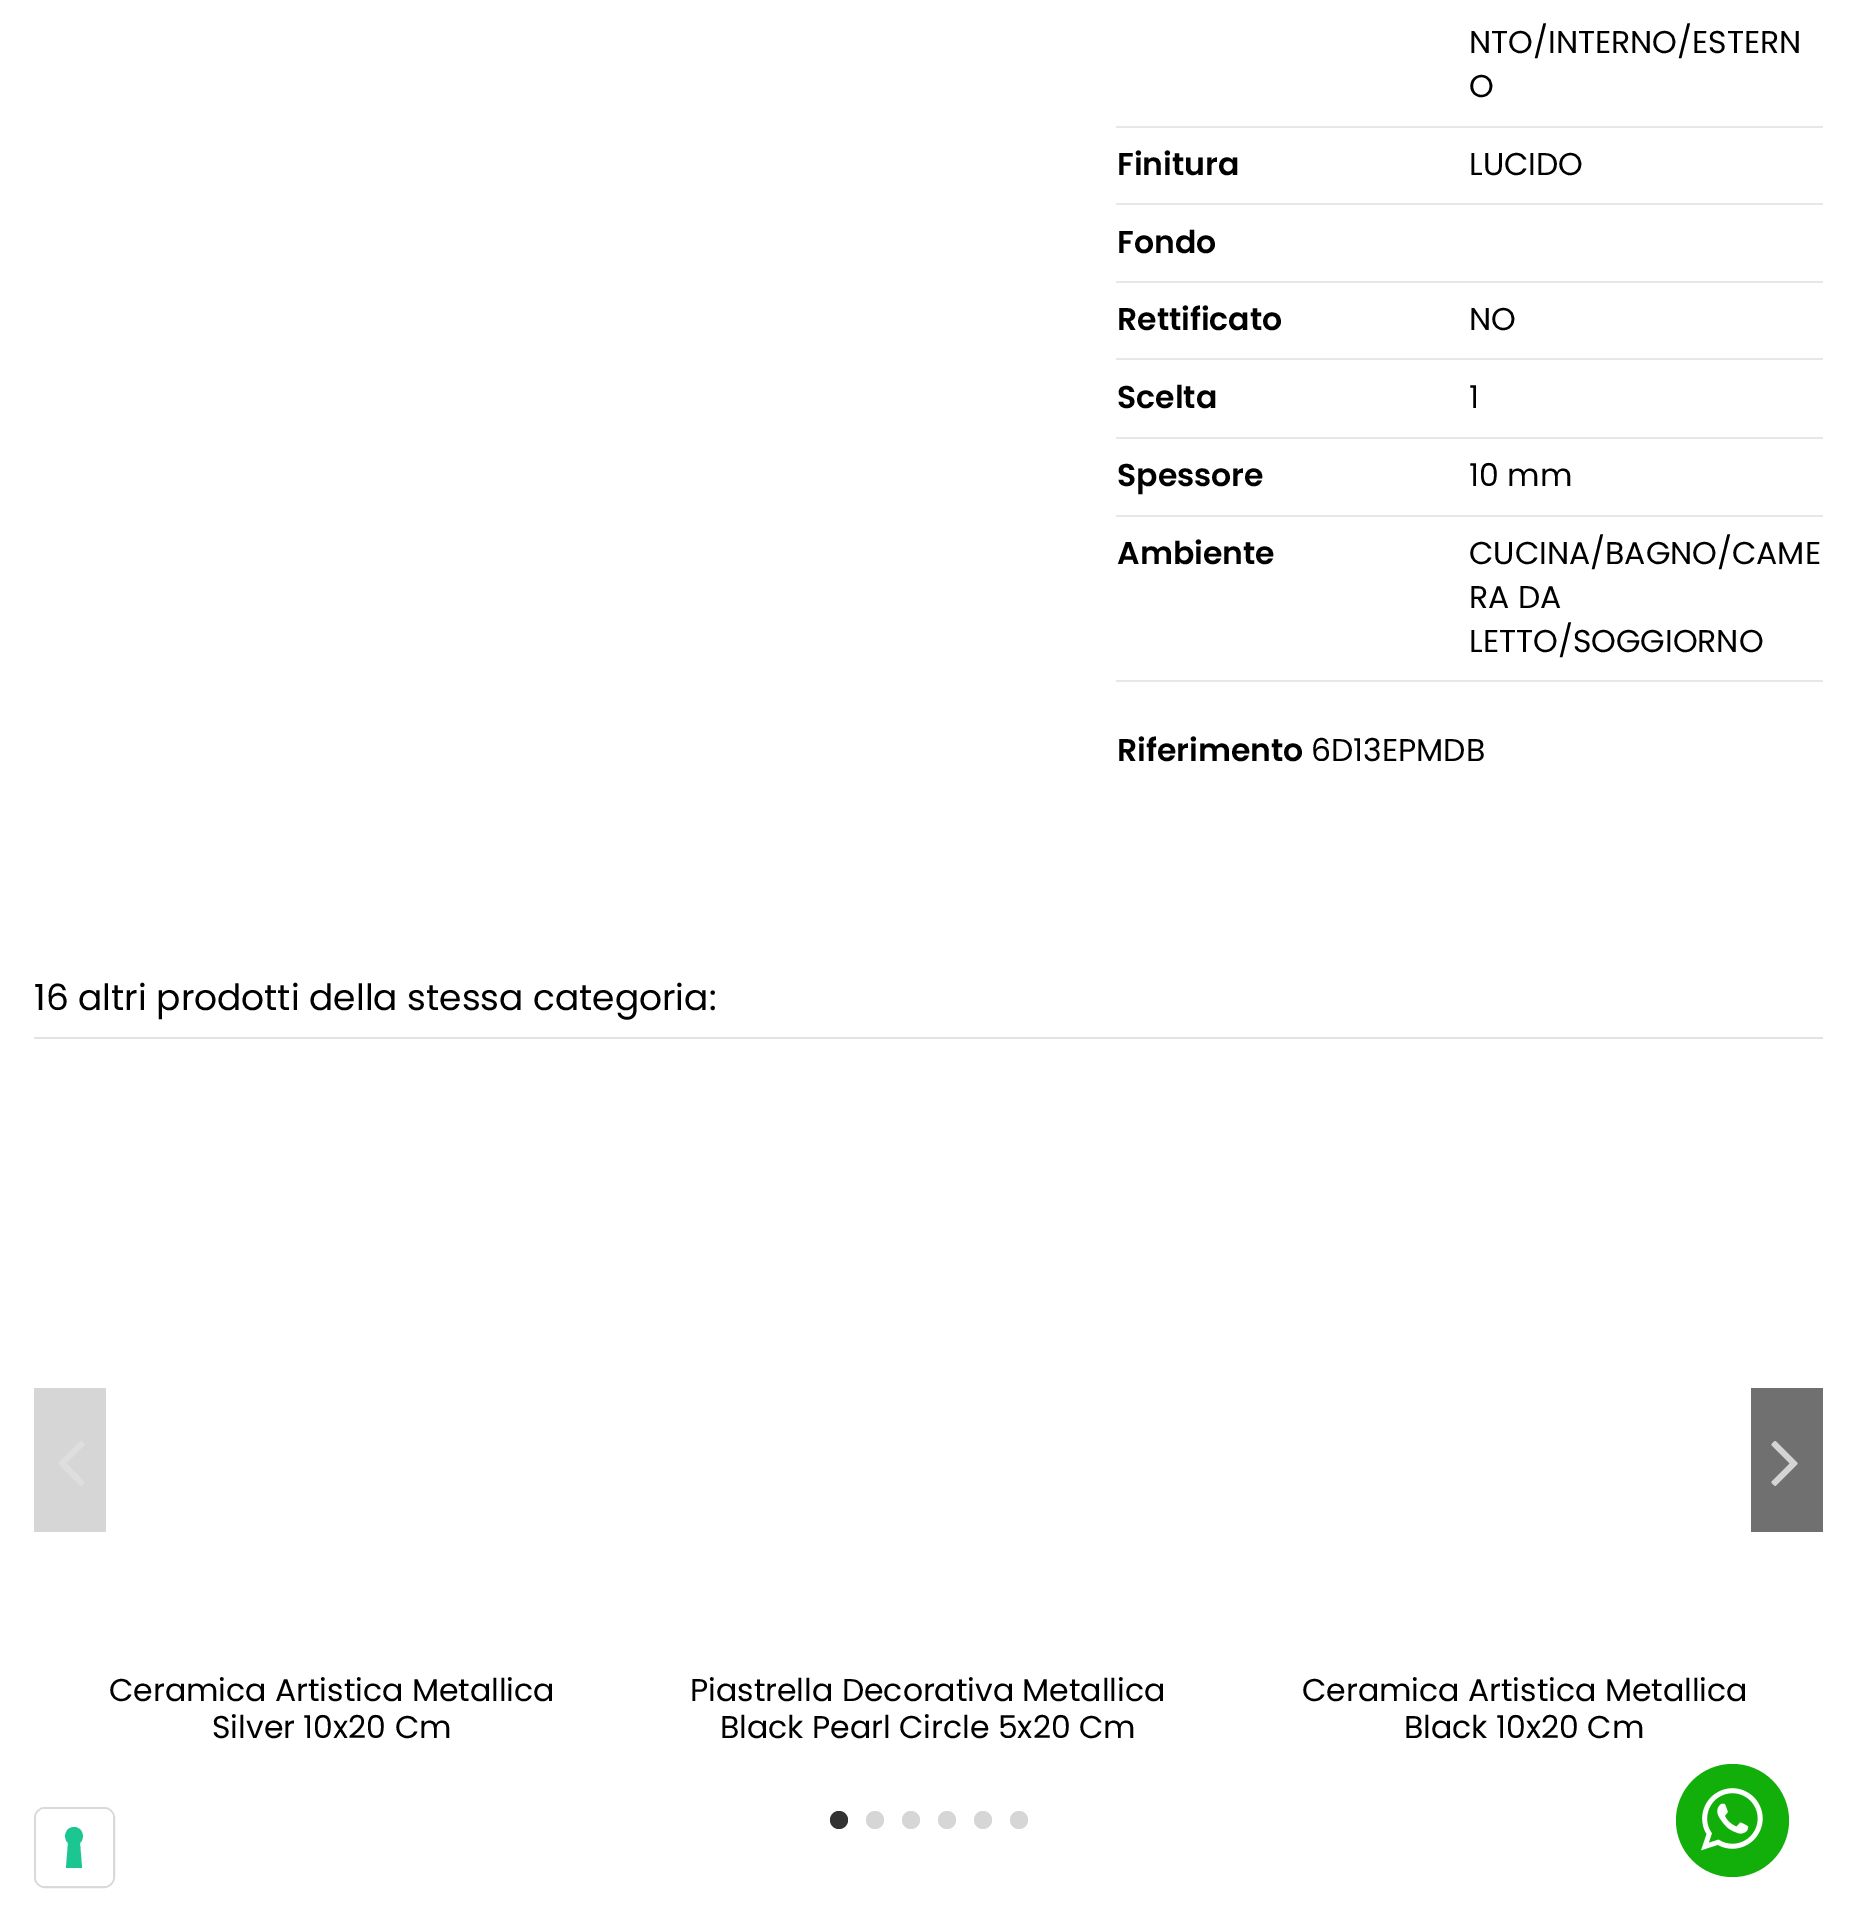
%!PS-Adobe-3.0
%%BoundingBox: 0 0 1855 1921
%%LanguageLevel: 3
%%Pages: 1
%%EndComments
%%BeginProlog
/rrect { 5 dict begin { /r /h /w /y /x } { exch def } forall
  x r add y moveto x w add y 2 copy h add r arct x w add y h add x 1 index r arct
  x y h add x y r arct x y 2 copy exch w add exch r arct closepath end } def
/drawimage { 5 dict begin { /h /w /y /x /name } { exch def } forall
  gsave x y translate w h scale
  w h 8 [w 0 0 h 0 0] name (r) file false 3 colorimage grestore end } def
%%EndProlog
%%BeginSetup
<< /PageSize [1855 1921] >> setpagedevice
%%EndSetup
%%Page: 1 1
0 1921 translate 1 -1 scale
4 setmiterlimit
1 setgray
0 0 1855 1921 rectfill
0.906 setgray
1116 126 707 2 rectfill
1116 203 707 2 rectfill
1116 281 707 2 rectfill
1116 358 707 2 rectfill
1116 437 707 2 rectfill
1116 515 707 2 rectfill
1116 680 707 2 rectfill
0.89 setgray
34 1037 1789 2 rectfill
0.839 setgray
34 1388 72 144 rectfill
(images/1.raw) 58 1441 27 45 drawimage
0.439 setgray
1751 1388 72 144 rectfill
(images/2.raw) 1771 1441 27 45 drawimage
0.2 setgray
newpath 839 1820 9 0 360 arc closepath fill
0.839 setgray
newpath 875 1820 9 0 360 arc closepath fill
newpath 911 1820 9 0 360 arc closepath fill
newpath 947 1820 9 0 360 arc closepath fill
newpath 983 1820 9 0 360 arc closepath fill
newpath 1019 1820 9 0 360 arc closepath fill
0.071 0.686 0.039 setrgbcolor
newpath 1732.5 1820.5 56.5 0 360 arc closepath fill
(images/3.raw) 1701 1788 62 63 drawimage
0.851 setgray
2 setlinewidth
35 1808 79 79 10 rrect stroke
1 setgray
36 1809 77 77 9 rrect fill
0.11 0.776 0.569 setrgbcolor
newpath 74 1827 moveto 82 1827 86 1837 80 1843 curveto 82 1868 lineto 66 1868 lineto 68 1843 lineto 62 1837 66 1827 74 1827 curveto closepath eofill
/Poppins-Regular [31.5 0 0 -31.5 0 0] selectfont
0 setgray
1469 53 moveto (NTO/INTERNO/ESTERN) show
1469 97 moveto (O) show
/Poppins-SemiBold [31.5 0 0 -31.5 0 0] selectfont
1117 175 moveto (Finitura) show
/Poppins-Regular [31.5 0 0 -31.5 0 0] selectfont
1469 175 moveto (LUCIDO) show
/Poppins-SemiBold [31.5 0 0 -31.5 0 0] selectfont
1117 253 moveto (Fondo) show
1117 330 moveto (Rettificato) show
/Poppins-Regular [31.5 0 0 -31.5 0 0] selectfont
1469 330 moveto (NO) show
/Poppins-SemiBold [31.5 0 0 -31.5 0 0] selectfont
1117 408 moveto (Scelta) show
/Poppins-Regular [31.5 0 0 -31.5 0 0] selectfont
1469 408 moveto (1) show
/Poppins-SemiBold [31.5 0 0 -31.5 0 0] selectfont
1117 486 moveto (Spessore) show
/Poppins-Regular [31.5 0 0 -31.5 0 0] selectfont
1469 486 moveto (10 mm) show
/Poppins-SemiBold [31.5 0 0 -31.5 0 0] selectfont
1117 564 moveto (Ambiente) show
/Poppins-Regular [31.5 0 0 -31.5 0 0] selectfont
1469 564 moveto (CUCINA/BAGNO/CAME) show
1469 608 moveto (RA DA) show
1469 652 moveto (LETTO/SOGGIORNO) show
/Poppins-SemiBold [31.5 0 0 -31.5 0 0] selectfont
1117 761 moveto (Riferimento) show
/Poppins-Regular [31.5 0 0 -31.5 0 0] selectfont
1311 761 moveto (6D13EPMDB) show
/Poppins-Regular [36 0 0 -36 0 0] selectfont
34 1010 moveto (16 altri prodotti della stessa categoria:) show
/Poppins-Regular [31.5 0 0 -31.5 0 0] selectfont
109 1701 moveto (Ceramica Artistica Metallica) show
212 1738 moveto (Silver 10x20 Cm) show
690 1701 moveto (Piastrella Decorativa Metallica) show
720 1738 moveto (Black Pearl Circle 5x20 Cm) show
1302 1701 moveto (Ceramica Artistica Metallica) show
1404 1738 moveto (Black 10x20 Cm) show
showpage
%%EOF
